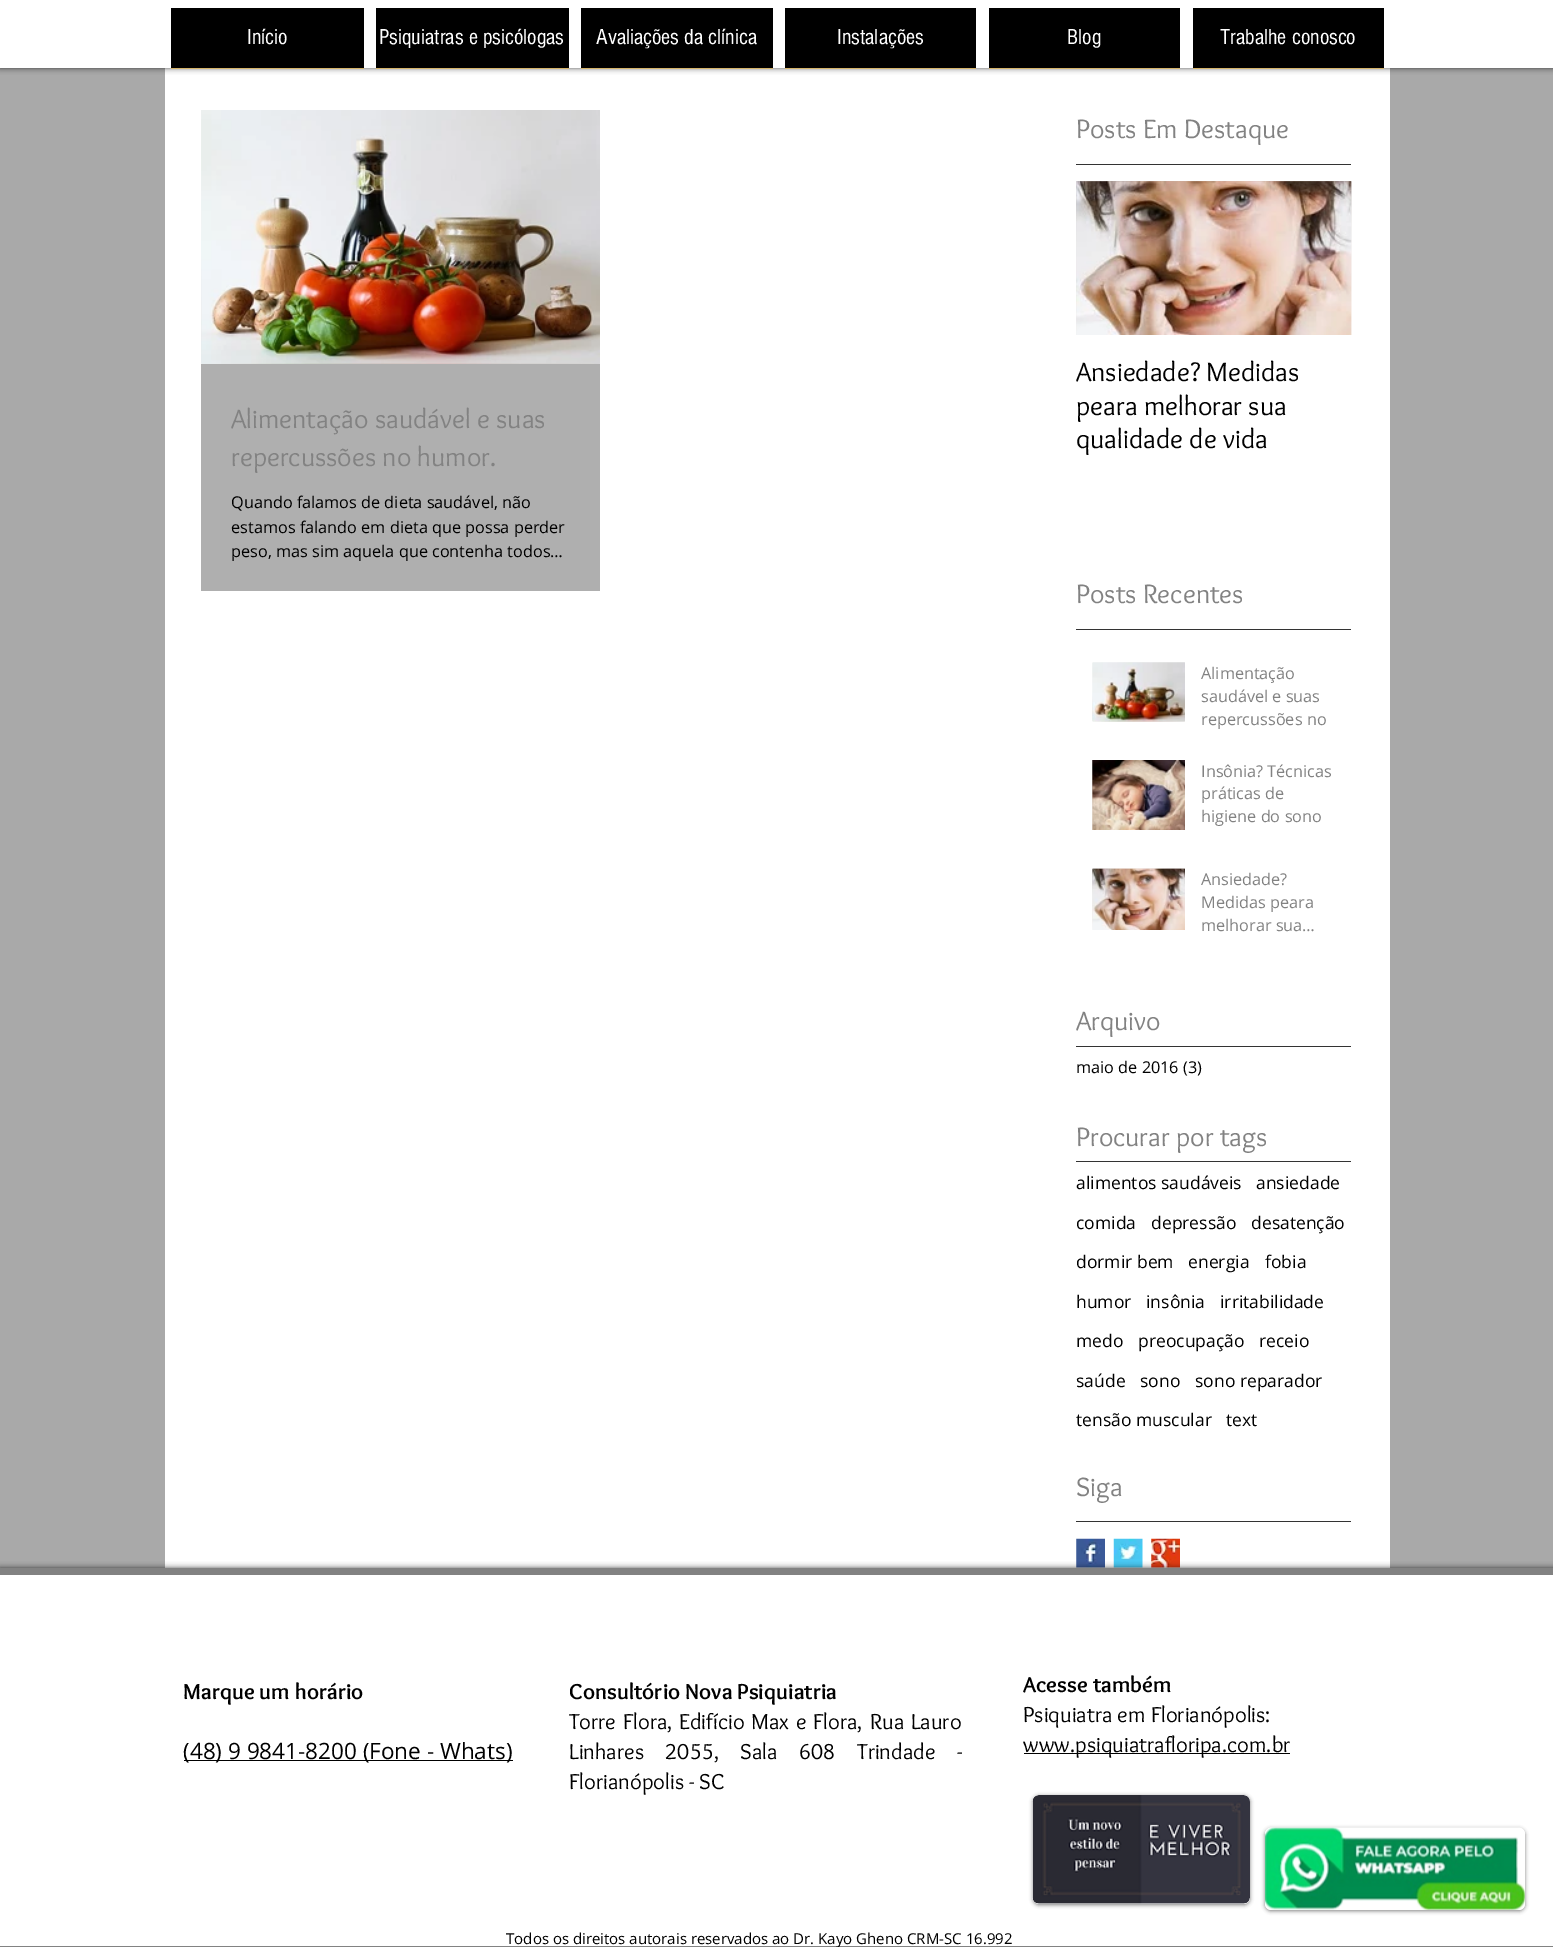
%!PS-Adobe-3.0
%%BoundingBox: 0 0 1553 1947
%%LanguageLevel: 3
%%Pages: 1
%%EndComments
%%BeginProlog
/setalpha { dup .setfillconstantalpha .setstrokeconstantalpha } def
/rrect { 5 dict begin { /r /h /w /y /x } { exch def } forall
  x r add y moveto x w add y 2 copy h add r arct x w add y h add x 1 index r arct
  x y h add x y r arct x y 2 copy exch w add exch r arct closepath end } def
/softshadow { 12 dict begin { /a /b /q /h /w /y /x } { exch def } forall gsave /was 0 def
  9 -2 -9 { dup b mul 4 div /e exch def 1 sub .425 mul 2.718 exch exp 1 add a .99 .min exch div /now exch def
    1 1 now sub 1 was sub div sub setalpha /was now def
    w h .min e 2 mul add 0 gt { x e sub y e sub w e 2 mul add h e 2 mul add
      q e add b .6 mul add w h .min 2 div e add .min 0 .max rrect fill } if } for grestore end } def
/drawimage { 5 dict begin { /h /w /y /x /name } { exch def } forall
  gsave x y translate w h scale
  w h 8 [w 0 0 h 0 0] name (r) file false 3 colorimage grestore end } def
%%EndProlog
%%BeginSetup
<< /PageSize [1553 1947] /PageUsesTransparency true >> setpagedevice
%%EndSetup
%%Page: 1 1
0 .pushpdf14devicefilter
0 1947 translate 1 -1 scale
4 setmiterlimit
0.663 setgray
0 0 1553 1947 rectfill
1 setgray
165 68 1225 1500 rectfill
0 setgray
0 0 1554 68 0 3 0.7 softshadow
1 setgray
0 0 1553 68 rectfill
0.835 0.702 0.412 setrgbcolor
newpath 171 9 moveto 171 69 lineto 364 69 lineto 364 9 lineto 364 68 lineto 171 68 lineto closepath fill
0 setgray
171 8 193 60 rectfill
0.835 0.702 0.412 setrgbcolor
newpath 376 9 moveto 376 69 lineto 569 69 lineto 569 9 lineto 569 68 lineto 376 68 lineto closepath fill
0 setgray
376 8 193 60 rectfill
0.835 0.702 0.412 setrgbcolor
newpath 581 9 moveto 581 69 lineto 773 69 lineto 773 9 lineto 772 9 lineto 772 68 lineto 581 68 lineto closepath fill
0 setgray
581 8 192 60 rectfill
0.835 0.702 0.412 setrgbcolor
785 68 191 1 rectfill
0 setgray
785 8 191 60 rectfill
0.835 0.702 0.412 setrgbcolor
989 68 191 1 rectfill
0 setgray
989 8 191 60 rectfill
0.835 0.702 0.412 setrgbcolor
newpath 1193 68 moveto 1193 69 lineto 1384 69 lineto 1384 9 lineto 1384 68 lineto closepath fill
0 setgray
1193 8 191 60 rectfill
0.2 setgray
1076 164 275 1 rectfill
(images/1.raw) 201 110 399 254 drawimage
(images/2.raw) 201 110 399 254 drawimage
0.686 setgray
201 364 399 227 rectfill
(images/3.raw) 1076 181 276 154 drawimage
(images/4.raw) 1076 181 276 154 drawimage
0.2 setgray
1076 629 275 1 rectfill
(images/5.raw) 1092 662 93 60 drawimage
(images/6.raw) 1092 662 93 60 drawimage
(images/7.raw) 1092 760 1 70 drawimage
(images/8.raw) 1092 760 93 70 drawimage
(images/9.raw) 1092 868 93 62 drawimage
(images/10.raw) 1092 868 93 62 drawimage
1076 1046 275 1 rectfill
1076 1161 275 1 rectfill
1076 1521 275 1 rectfill
(images/11.raw) 1076 1538 29 30 drawimage
(images/12.raw) 1113 1538 30 30 drawimage
(images/13.raw) 1151 1538 29 30 drawimage
0 setgray
0 1568 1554 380 0 3 0.7 softshadow
1 setgray
0 1575 1553 371 rectfill
0.51 setgray
0 1568 1553 7 rectfill
0 1946 1553 1 rectfill
0 setgray
184 1760 329 1 rectfill
1024 1753 266 1 rectfill
1033 1796 217 109 6 2 0.5 softshadow
1 setgray
1033 1795 217 109 6 rrect fill
(images/14.raw) 1032 1795 218 109 drawimage
0 setgray
1265 1829 260 82 6 2 0.5 softshadow
1 setgray
1265 1828 260 82 6 rrect fill
(images/15.raw) 1265 1827 260 83 drawimage
/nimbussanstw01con-Regular [22.5 0 0 -22.5 0 0] selectfont
247 44 moveto (Início) show
379 44 moveto (Psiquiatras e psicólogas) show
596 44 moveto (Avaliações da clínica) show
837 44 moveto (Instalações) show
1067 44 moveto (Blog) show
1220 44 moveto (Trabalhe conosco) show
/Overlock-Regular [27.5 0 0 -27.5 0 0] selectfont
0.51 setgray
1076 138 moveto (Posts Em Destaque) show
231 428 moveto (Alimentação saudável e suas) show
231 466 moveto (repercussões no humor.) show
/OpenSans-Regular [16.25 0 0 -16.25 0 0] selectfont
0 setgray
231 508 moveto (Quando falamos de dieta saudável, não) show
231 533 moveto (estamos falando em dieta que possa perder) show
231 557 moveto (peso, mas sim aquela que contenha todos…) show
/Overlock-Regular [27.5 0 0 -27.5 0 0] selectfont
1076 381 moveto (Ansiedade? Medidas) show
1076 415 moveto (peara melhorar sua) show
1076 448 moveto (qualidade de vida) show
0.51 setgray
1076 603 moveto (Posts Recentes) show
/OpenSans-Regular [16.25 0 0 -16.25 0 0] selectfont
1201 679 moveto (Alimentação) show
1201 702 moveto (saudável e suas) show
1201 725 moveto (repercussões no) show
1201 777 moveto (Insônia? Técnicas) show
1201 799 moveto (práticas de) show
1201 822 moveto (higiene do sono) show
1201 885 moveto (Ansiedade?) show
1201 908 moveto (Medidas peara) show
1201 931 moveto (melhorar sua…) show
/Overlock-Regular [27.5 0 0 -27.5 0 0] selectfont
1076 1030 moveto (Arquivo) show
/OpenSans-Regular [16.25 0 0 -16.25 0 0] selectfont
0 setgray
1076 1073 moveto (maio de 2016 \(3\)) show
/Overlock-Regular [27.5 0 0 -27.5 0 0] selectfont
0.51 setgray
1076 1146 moveto (Procurar por tags) show
/OpenSans-Regular [17.5 0 0 -17.5 0 0] selectfont
0 setgray
1076 1189 moveto (alimentos saudáveis) show
1256 1189 moveto (ansiedade) show
1076 1229 moveto (comida) show
1151 1229 moveto (depressão) show
1251 1229 moveto (desatenção) show
1076 1268 moveto (dormir bem) show
1188 1268 moveto (energia) show
1265 1268 moveto (fobia) show
1076 1308 moveto (humor) show
1146 1308 moveto (insônia) show
1220 1308 moveto (irritabilidade) show
1076 1347 moveto (medo) show
1138 1347 moveto (preocupação) show
1259 1347 moveto (receio) show
1076 1387 moveto (saúde) show
1140 1387 moveto (sono) show
1195 1387 moveto (sono reparador) show
1076 1426 moveto (tensão muscular) show
1226 1426 moveto (text) show
/Overlock-Regular [27.5 0 0 -27.5 0 0] selectfont
0.51 setgray
1076 1496 moveto (Siga) show
/Overlock-Bold [22.5 0 0 -22.5 0 0] selectfont
0 setgray
183 1699 moveto (Marque um horário) show
/OpenSans-Regular [22.5 0 0 -22.5 0 0] selectfont
183 1759 moveto (\(48\) 9 9841-8200 \(Fone - Whats\)) show
/Overlock-Bold [22.5 0 0 -22.5 0 0] selectfont
569 1699 moveto (Consultório Nova Psiquiatria) show
/Overlock-Regular [22.5 0 0 -22.5 0 0] selectfont
569 1729 moveto 1.5 0 32 (Torre Flora, Edifício Max e Flora,) widthshow
870 1729 moveto 1.5 0 32 (Rua Lauro) widthshow
569 1759 moveto 16.5 0 32 (Linhares 2055, Sala 608 Trindade -) widthshow
569 1789 moveto (Florianópolis - SC) show
/Overlock-Bold [22.5 0 0 -22.5 0 0] selectfont
1023 1692 moveto (Acesse também) show
/Overlock-Regular [22.5 0 0 -22.5 0 0] selectfont
1023 1722 moveto (Psiquiatra em Florianópolis:) show
1023 1752 moveto (www.psiquiatrafloripa.com.br) show
/OpenSans-Regular [15 0 0 -15 0 0] selectfont
506 1944 moveto (Todos os direitos autorais reservados ao Dr. Kayo Gheno CRM-SC 16.992) show
.poppdf14devicefilter showpage
%%EOF
